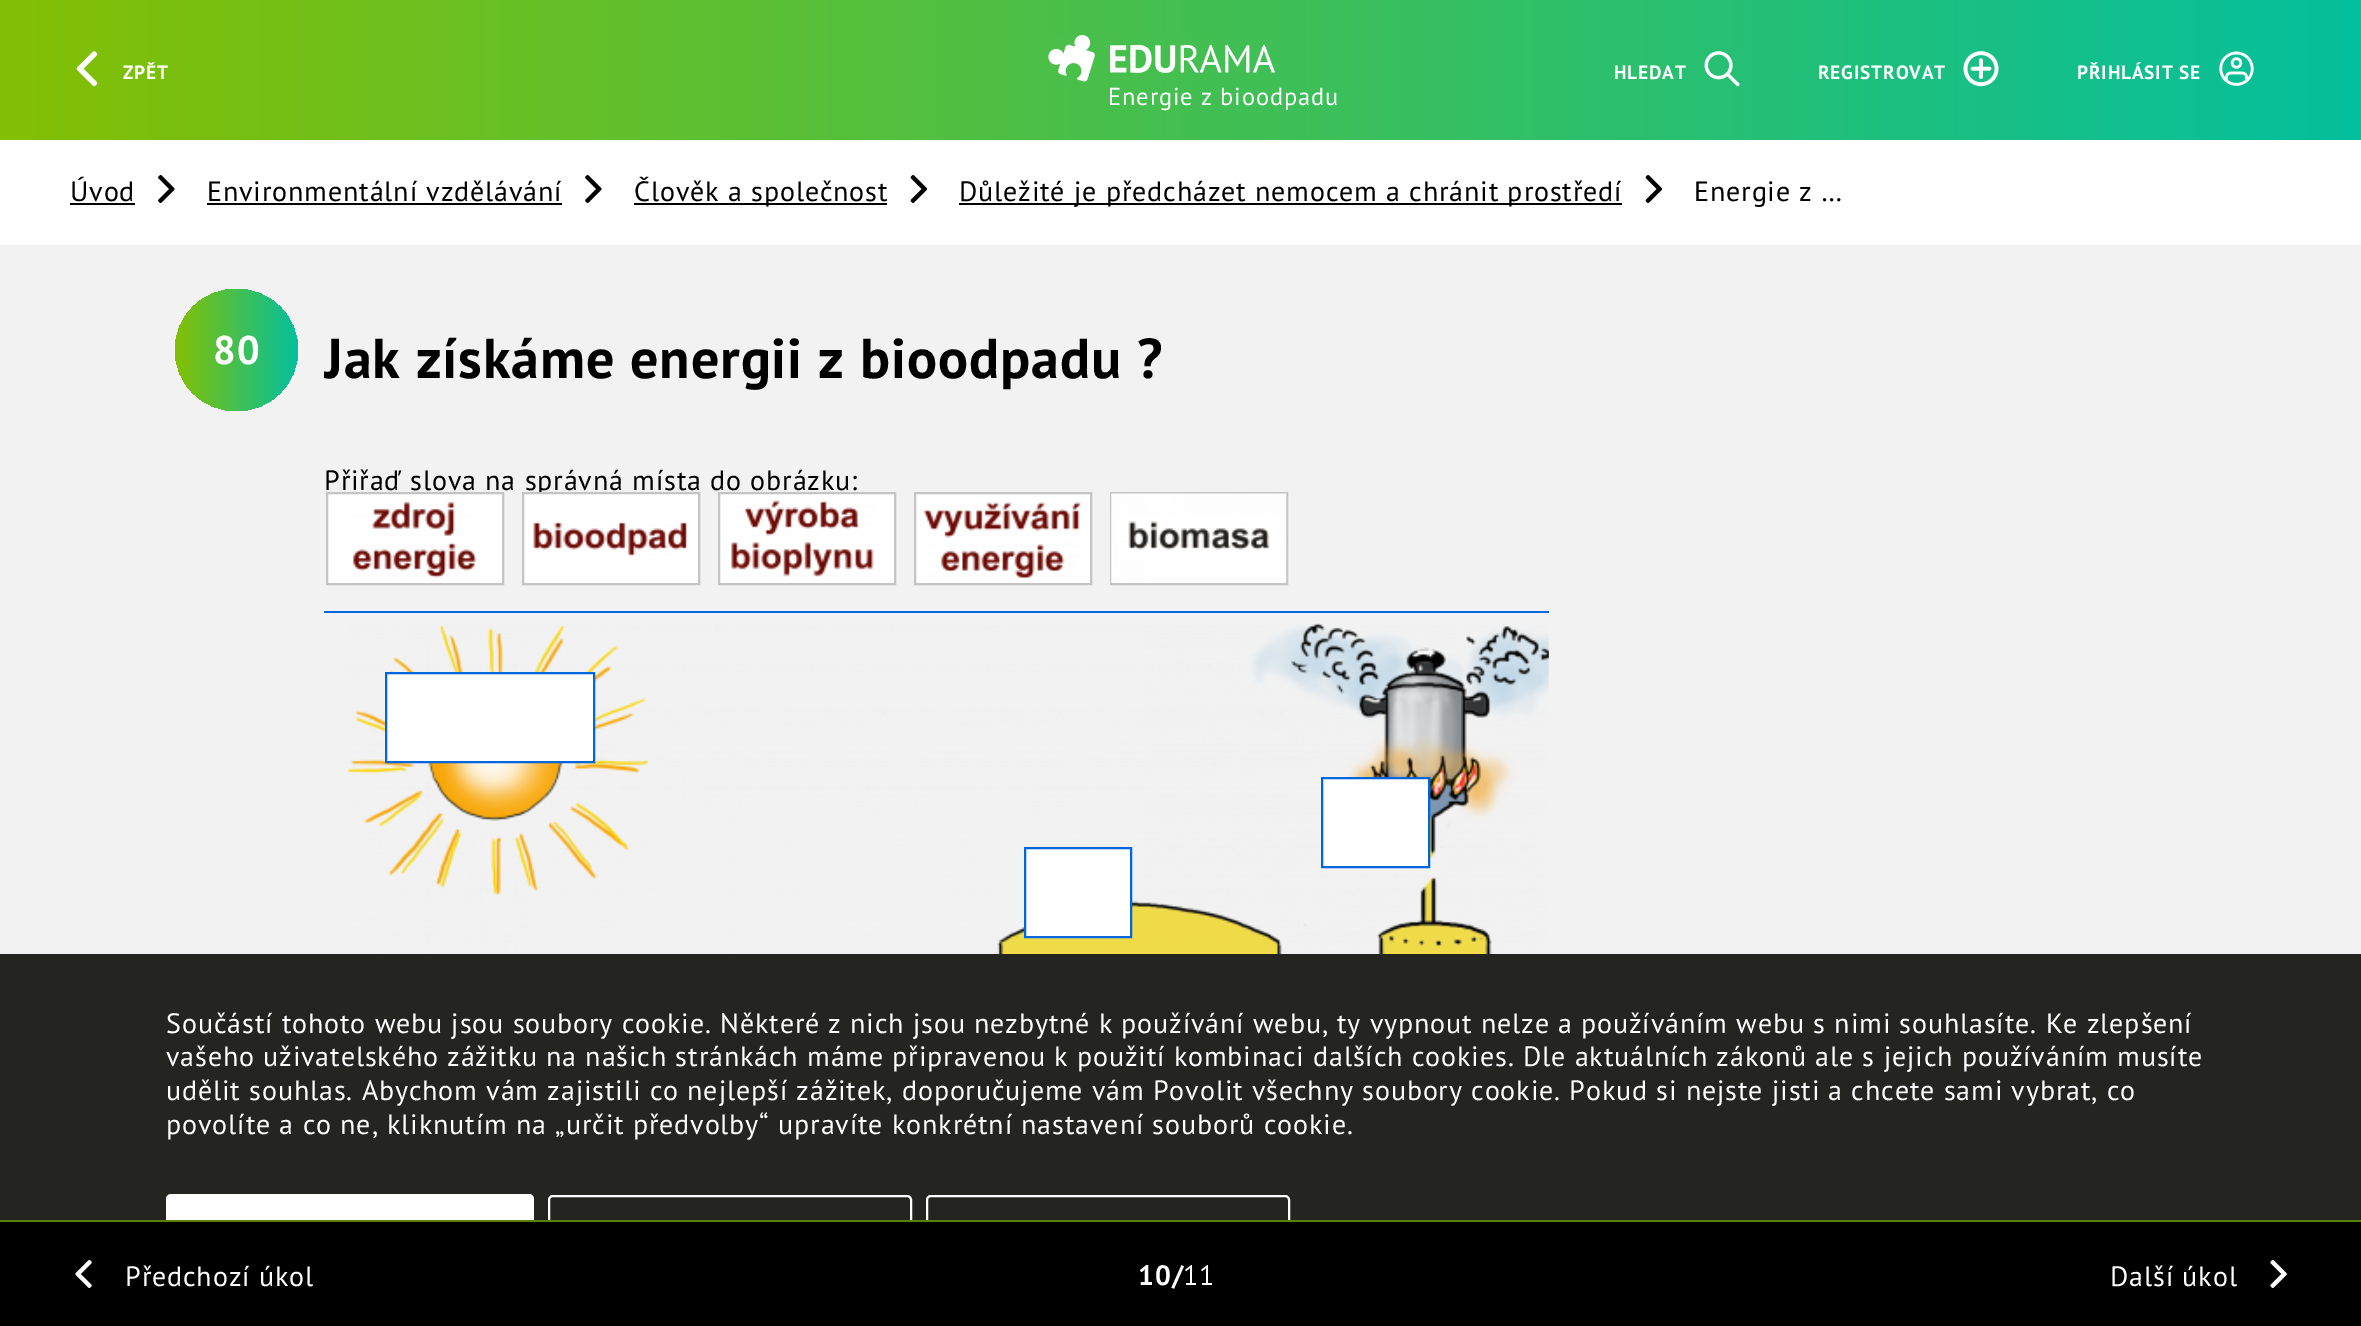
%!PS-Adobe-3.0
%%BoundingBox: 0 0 2361 1326
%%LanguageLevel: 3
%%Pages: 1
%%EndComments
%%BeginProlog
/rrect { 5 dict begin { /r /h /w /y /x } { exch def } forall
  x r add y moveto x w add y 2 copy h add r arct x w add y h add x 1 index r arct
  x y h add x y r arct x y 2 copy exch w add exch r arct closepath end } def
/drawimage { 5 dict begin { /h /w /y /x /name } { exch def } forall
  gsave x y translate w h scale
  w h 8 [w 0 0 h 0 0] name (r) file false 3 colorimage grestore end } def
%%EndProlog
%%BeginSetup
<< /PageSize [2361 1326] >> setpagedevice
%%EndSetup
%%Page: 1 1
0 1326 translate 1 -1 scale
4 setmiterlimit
0.949 setgray
0 0 2361 1326 rectfill
gsave newpath 0 0 moveto 2361 0 lineto 2361 140 lineto 0 140 lineto closepath clip newpath
<< /ShadingType 2 /ColorSpace /DeviceRGB /Coords [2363 70 0 70] /Extend [true true] /Function << /FunctionType 2 /Domain [0 1] /C0 [0.016 0.749 0.616] /C1 [0.518 0.749 0.016] /N 1 >> >> shfill grestore
(images/1.raw) 76 51 22 36 drawimage
(images/2.raw) 1704 51 36 36 drawimage
(images/3.raw) 1963 51 36 36 drawimage
(images/4.raw) 2219 51 35 35 drawimage
(images/5.raw) 1048 35 227 47 drawimage
1 setgray
0 140 2361 105 rectfill
0 setgray
70 203 65 2 rectfill
(images/6.raw) 158 175 17 28 drawimage
207 203 355 2 rectfill
(images/6.raw) 585 175 17 28 drawimage
634 203 253 2 rectfill
(images/7.raw) 910 175 17 28 drawimage
959 203 663 2 rectfill
(images/7.raw) 1645 175 17 28 drawimage
gsave 175 289 123 122 61 rrect clip newpath
<< /ShadingType 2 /ColorSpace /DeviceRGB /Coords [298 350 175 350] /Extend [true true] /Function << /FunctionType 2 /Domain [0 1] /C0 [0.016 0.749 0.616] /C1 [0.518 0.749 0.016] /N 1 >> >> shfill grestore
1 setgray
newpath 915 493 moveto 1091 493 lineto 1091 584 lineto 915 584 lineto closepath gsave fill grestore
0.769 setgray
2 setlinewidth
stroke
(images/11.raw) 923 502 159 76 drawimage
1111 493 176 91 rectstroke
(images/12.raw) 1111 493 176 90 drawimage
(images/13.raw) 347 623 1202 331 drawimage
0 0.4 0.867 setrgbcolor
324 611 1225 2 rectfill
1 setgray
newpath 386 673 moveto 594 673 lineto 594 762 lineto 386 762 lineto closepath gsave fill grestore
0 0.4 0.867 setrgbcolor
stroke
1 setgray
newpath 1322 778 moveto 1429 778 lineto 1429 867 lineto 1322 867 lineto closepath gsave fill grestore
0 0.4 0.867 setrgbcolor
stroke
1 setgray
newpath 1025 848 moveto 1131 848 lineto 1131 937 lineto 1025 937 lineto closepath gsave fill grestore
0 0.4 0.867 setrgbcolor
stroke
0.141 0.145 0.129 setrgbcolor
0 954 2361 266 rectfill
1 setgray
166 1194 368 66 5 rrect fill
549 1196 362 61 4 rrect stroke
927 1196 362 61 4 rrect stroke
0 setgray
0 1222 2361 104 rectfill
0.357 0.502 0.024 setrgbcolor
0 1220 2361 2 rectfill
(images/14.raw) 75 1260 17 28 drawimage
(images/15.raw) 2270 1260 17 28 drawimage
/PTSans-Bold [19.25 0 0 -19.25 0 0] selectfont
1 setgray
123 79 moveto 0.88 0 (ZPĚT) ashow
1614 79 moveto 0.88 0 (HLEDAT) ashow
1818 79 moveto 0.88 0 (REGISTROVAT) ashow
2077 79 moveto 0.88 0 (PŘIHLÁSIT SE) ashow
/PTSans-Regular [24.5 0 0 -24.5 0 0] selectfont
1108 105 moveto 0.88 0 (Energie z bioodpadu) ashow
/PTSans-Regular [28 0 0 -28 0 0] selectfont
0 setgray
70 201 moveto 0.88 0 (Úvod) ashow
207 201 moveto 0.88 0 (Environmentální vzdělávání) ashow
634 201 moveto 0.88 0 (Člověk a společnost) ashow
959 201 moveto 0.88 0 (Důležité je předcházet nemocem a chránit prostředí) ashow
1694 201 moveto 0.88 0 (Energie z …) ashow
/PTSans-Bold [40 0 0 -40 0 0] selectfont
1 setgray
213 364 moveto 0.88 0 (80) ashow
gsave
324 315 1715 84 rectclip
/PTSans-Bold [56 0 0 -56 0 0] selectfont
0 setgray
324 378 moveto 0.88 0 (Jak získáme energii z bioodpadu ?) ashow
grestore
/PTSans-Regular [28 0 0 -28 0 0] selectfont
0 setgray
324 490 moveto 0.88 0 (Přiřaď slova na správná místa do obrázku:) ashow
1 setgray
newpath 327 493 moveto 503 493 lineto 503 584 lineto 327 584 lineto closepath gsave fill grestore
0.769 setgray
stroke
(images/8.raw) 353 501 124 77 drawimage
1 setgray
newpath 523 493 moveto 699 493 lineto 699 584 lineto 523 584 lineto closepath gsave fill grestore
0.769 setgray
stroke
(images/9.raw) 533 521 154 35 drawimage
1 setgray
newpath 719 493 moveto 895 493 lineto 895 584 lineto 719 584 lineto closepath gsave fill grestore
0.769 setgray
stroke
(images/10.raw) 731 500 143 77 drawimage
1 setgray
125 1286 moveto 0.88 0 (Předchozí úkol) ashow
/PTSans-Bold [28 0 0 -28 0 0] selectfont
1138 1285 moveto 0.88 0 (10/) ashow
/PTSans-Regular [28 0 0 -28 0 0] selectfont
1183 1285 moveto 0.88 0 (11) ashow
2110 1286 moveto 0.88 0 (Další úkol) ashow
166 1033 moveto 0.88 0 (Součástí tohoto webu jsou soubory cookie. Některé z nich jsou nezbytné k používání webu, ty vypnout nelze a používáním webu s nimi souhlasíte. Ke zlepšení) ashow
166 1066 moveto 0.88 0 (vašeho uživatelského zážitku na našich stránkách máme připravenou k použití kombinaci dalších cookies. Dle aktuálních zákonů ale s jejich používáním musíte) ashow
166 1100 moveto 0.88 0 (udělit souhlas. Abychom vám zajistili co nejlepší zážitek, doporučujeme vám Povolit všechny soubory cookie. Pokud si nejste jisti a chcete sami vybrat, co) ashow
166 1134 moveto 0.88 0 (povolíte a co ne, kliknutím na „určit předvolby“ upravíte konkrétní nastavení souborů cookie.) ashow
showpage
%%EOF
